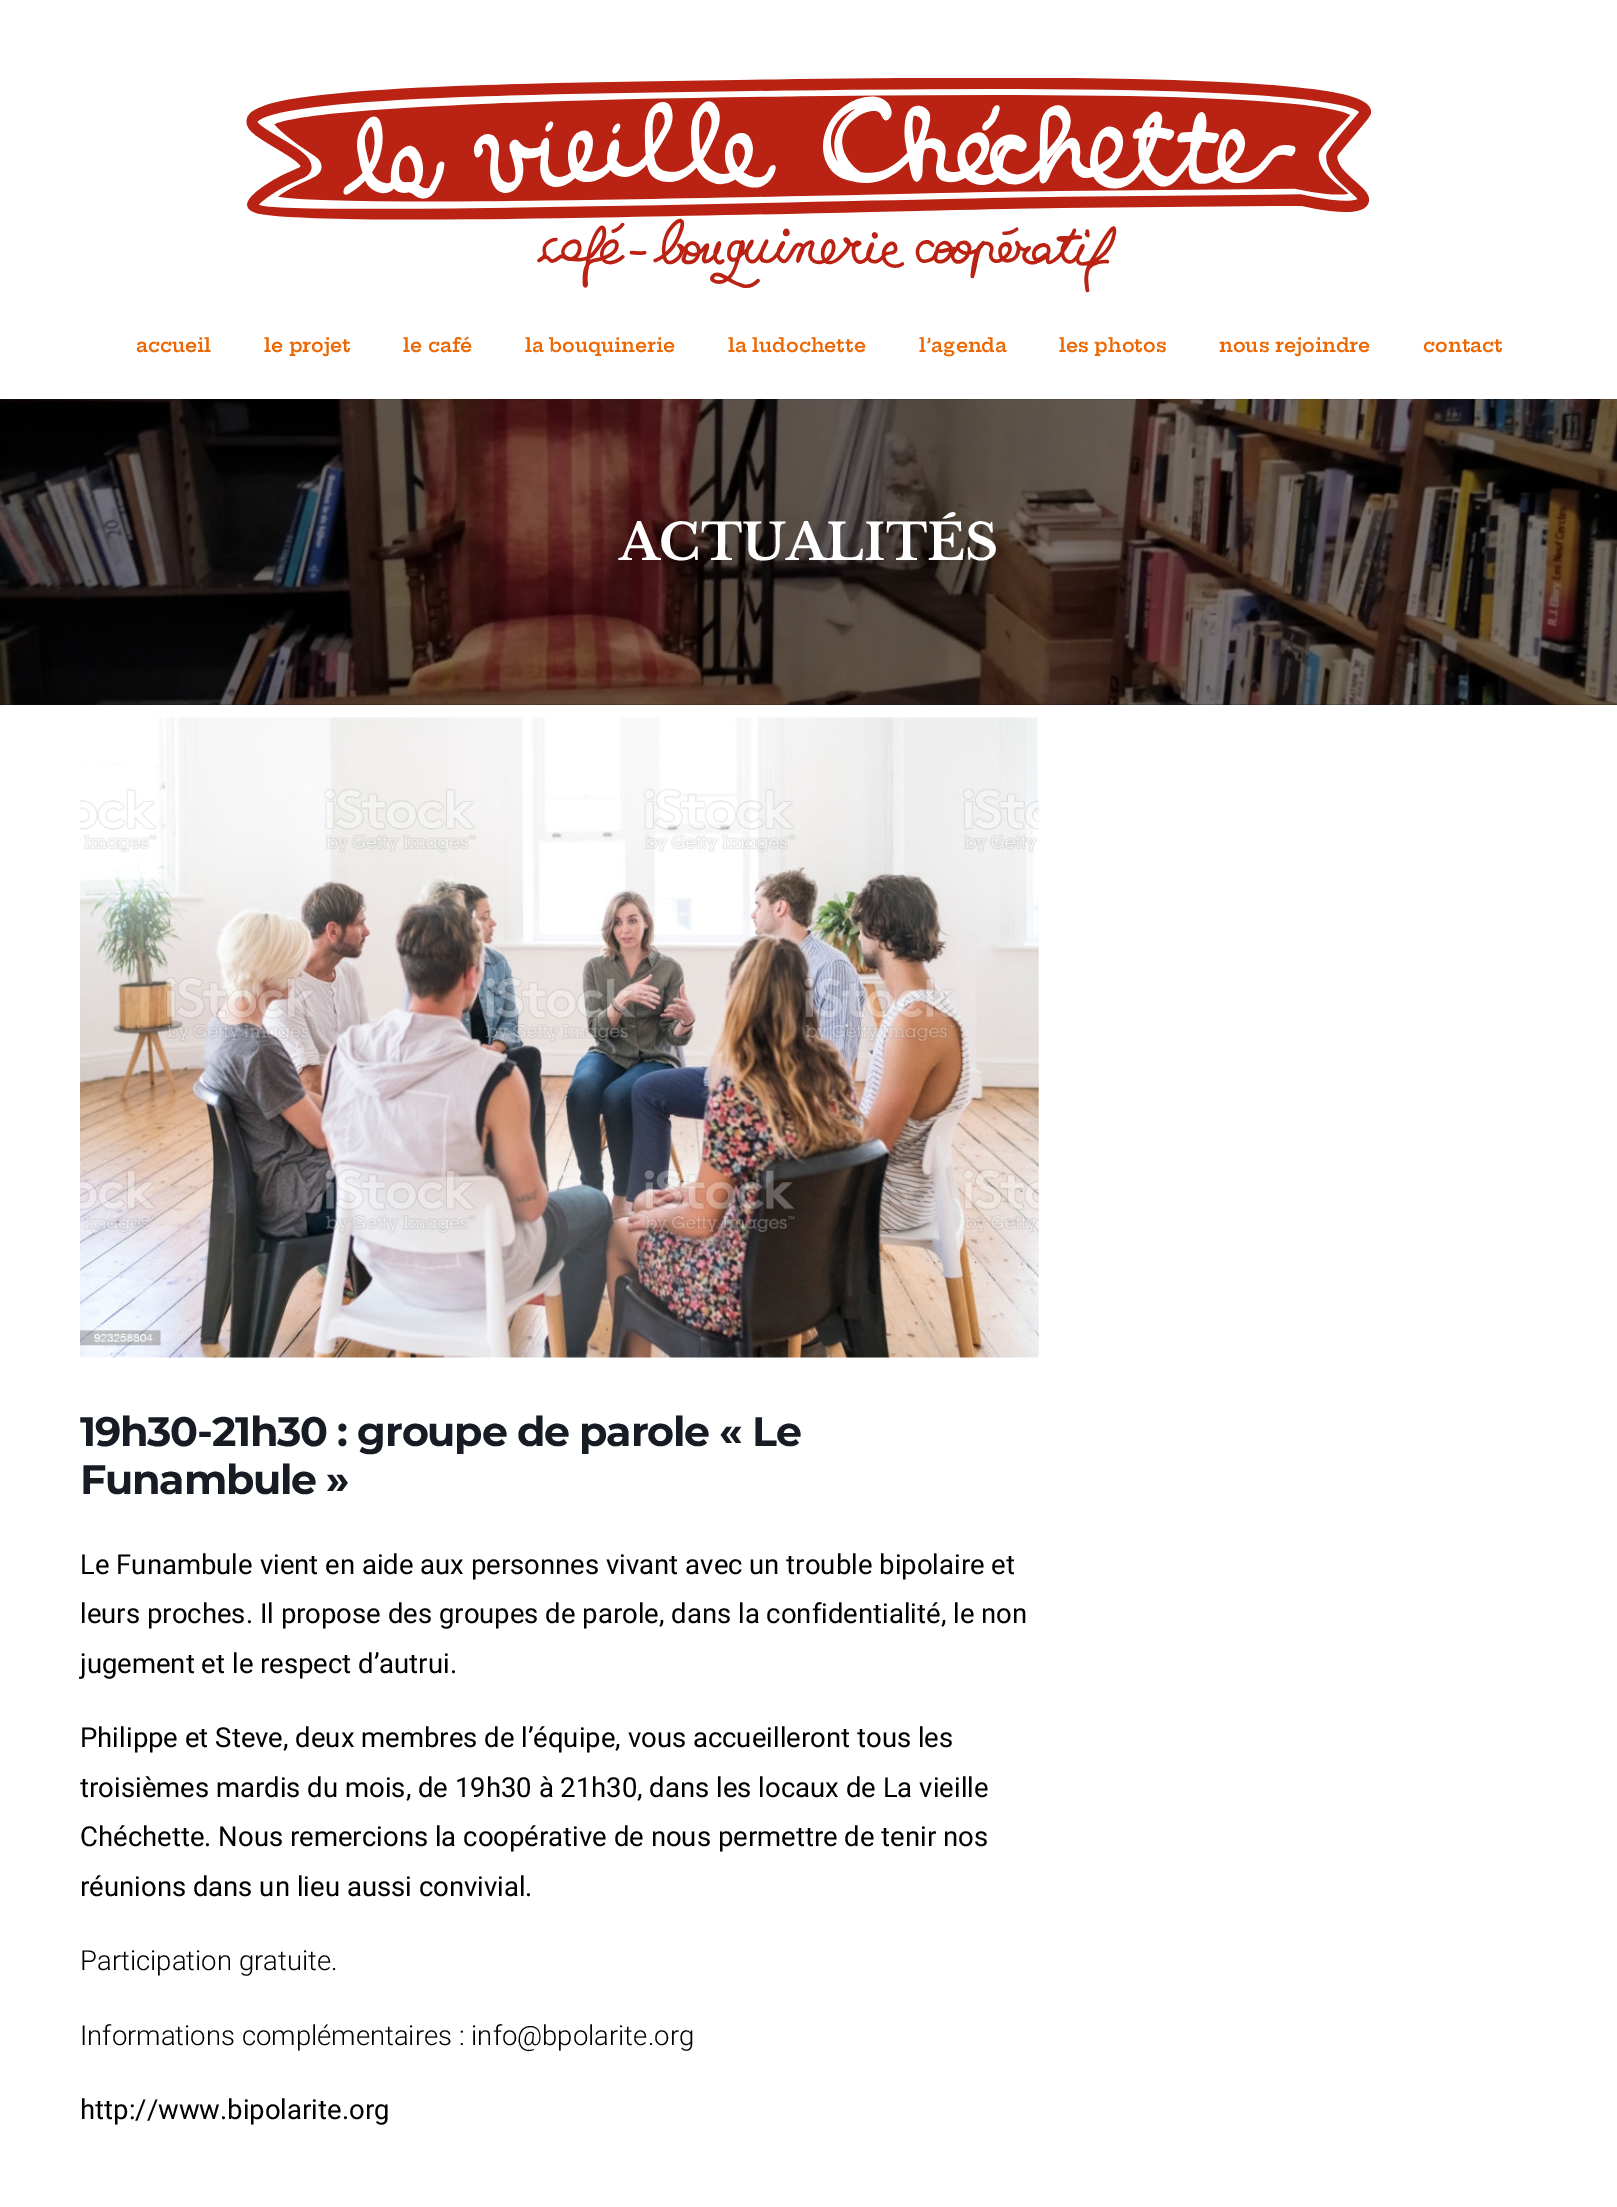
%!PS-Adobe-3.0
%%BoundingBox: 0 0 1617 2207
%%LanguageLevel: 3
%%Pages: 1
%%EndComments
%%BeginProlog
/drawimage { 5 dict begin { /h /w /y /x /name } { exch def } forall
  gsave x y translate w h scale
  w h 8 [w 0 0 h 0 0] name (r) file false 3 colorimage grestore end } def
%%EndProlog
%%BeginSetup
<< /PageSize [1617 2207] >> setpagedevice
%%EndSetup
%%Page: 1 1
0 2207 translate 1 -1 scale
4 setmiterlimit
1 setgray
0 0 1617 2207 rectfill
(images/1.raw) 246 78 1125 215 drawimage
(images/2.raw) 0 399 1617 306 drawimage
(images/3.raw) 80 717 959 641 drawimage
/HeptaSlab-SemiBold [18.75 0 0 -18.75 0 0] selectfont
0.929 0.4 0 setrgbcolor
136 352 moveto (accueil) show
264 352 moveto (le projet) show
403 352 moveto (le café) show
525 352 moveto (la bouquinerie) show
728 352 moveto (la ludochette) show
919 352 moveto (l’agenda) show
1059 352 moveto (les photos) show
1219 352 moveto (nous rejoindre) show
1423 352 moveto (contact) show
/LibreBaskerville-Bold [50 0 0 -50 0 0] selectfont
1 setgray
619 560 moveto (ACTUALITÉS) show
/Montserrat-Bold [41.25 0 0 -41.25 0 0] selectfont
0.09 0.11 0.141 setrgbcolor
80 1446 moveto -1.25 0 (19h30-21h30 : groupe de parole « Le) ashow
80 1494 moveto -1.25 0 (Funambule ») ashow
/Roboto-Regular [27.5 0 0 -27.5 0 0] selectfont
0 setgray
80 1574 moveto (Le Funambule vient en aide aux personnes vivant avec un trouble bipolaire et) show
80 1623 moveto (leurs proches. Il propose des groupes de parole, dans la confidentialité, le non) show
80 1673 moveto (jugement et le respect d’autrui.) show
80 1747 moveto (Philippe et Steve, deux membres de l’équipe, vous accueilleront tous les) show
80 1797 moveto (troisièmes mardis du mois, de 19h30 à 21h30, dans les locaux de La vieille) show
80 1846 moveto (Chéchette. Nous remercions la coopérative de nous permettre de tenir nos) show
80 1896 moveto (réunions dans un lieu aussi convivial.) show
/Roboto-Light [27.5 0 0 -27.5 0 0] selectfont
80 1970 moveto (Participation gratuite.) show
80 2045 moveto (Informations complémentaires : info@bpolarite.org) show
/Roboto-Regular [27.5 0 0 -27.5 0 0] selectfont
80 2119 moveto (http://www.bipolarite.org) show
showpage
%%EOF
